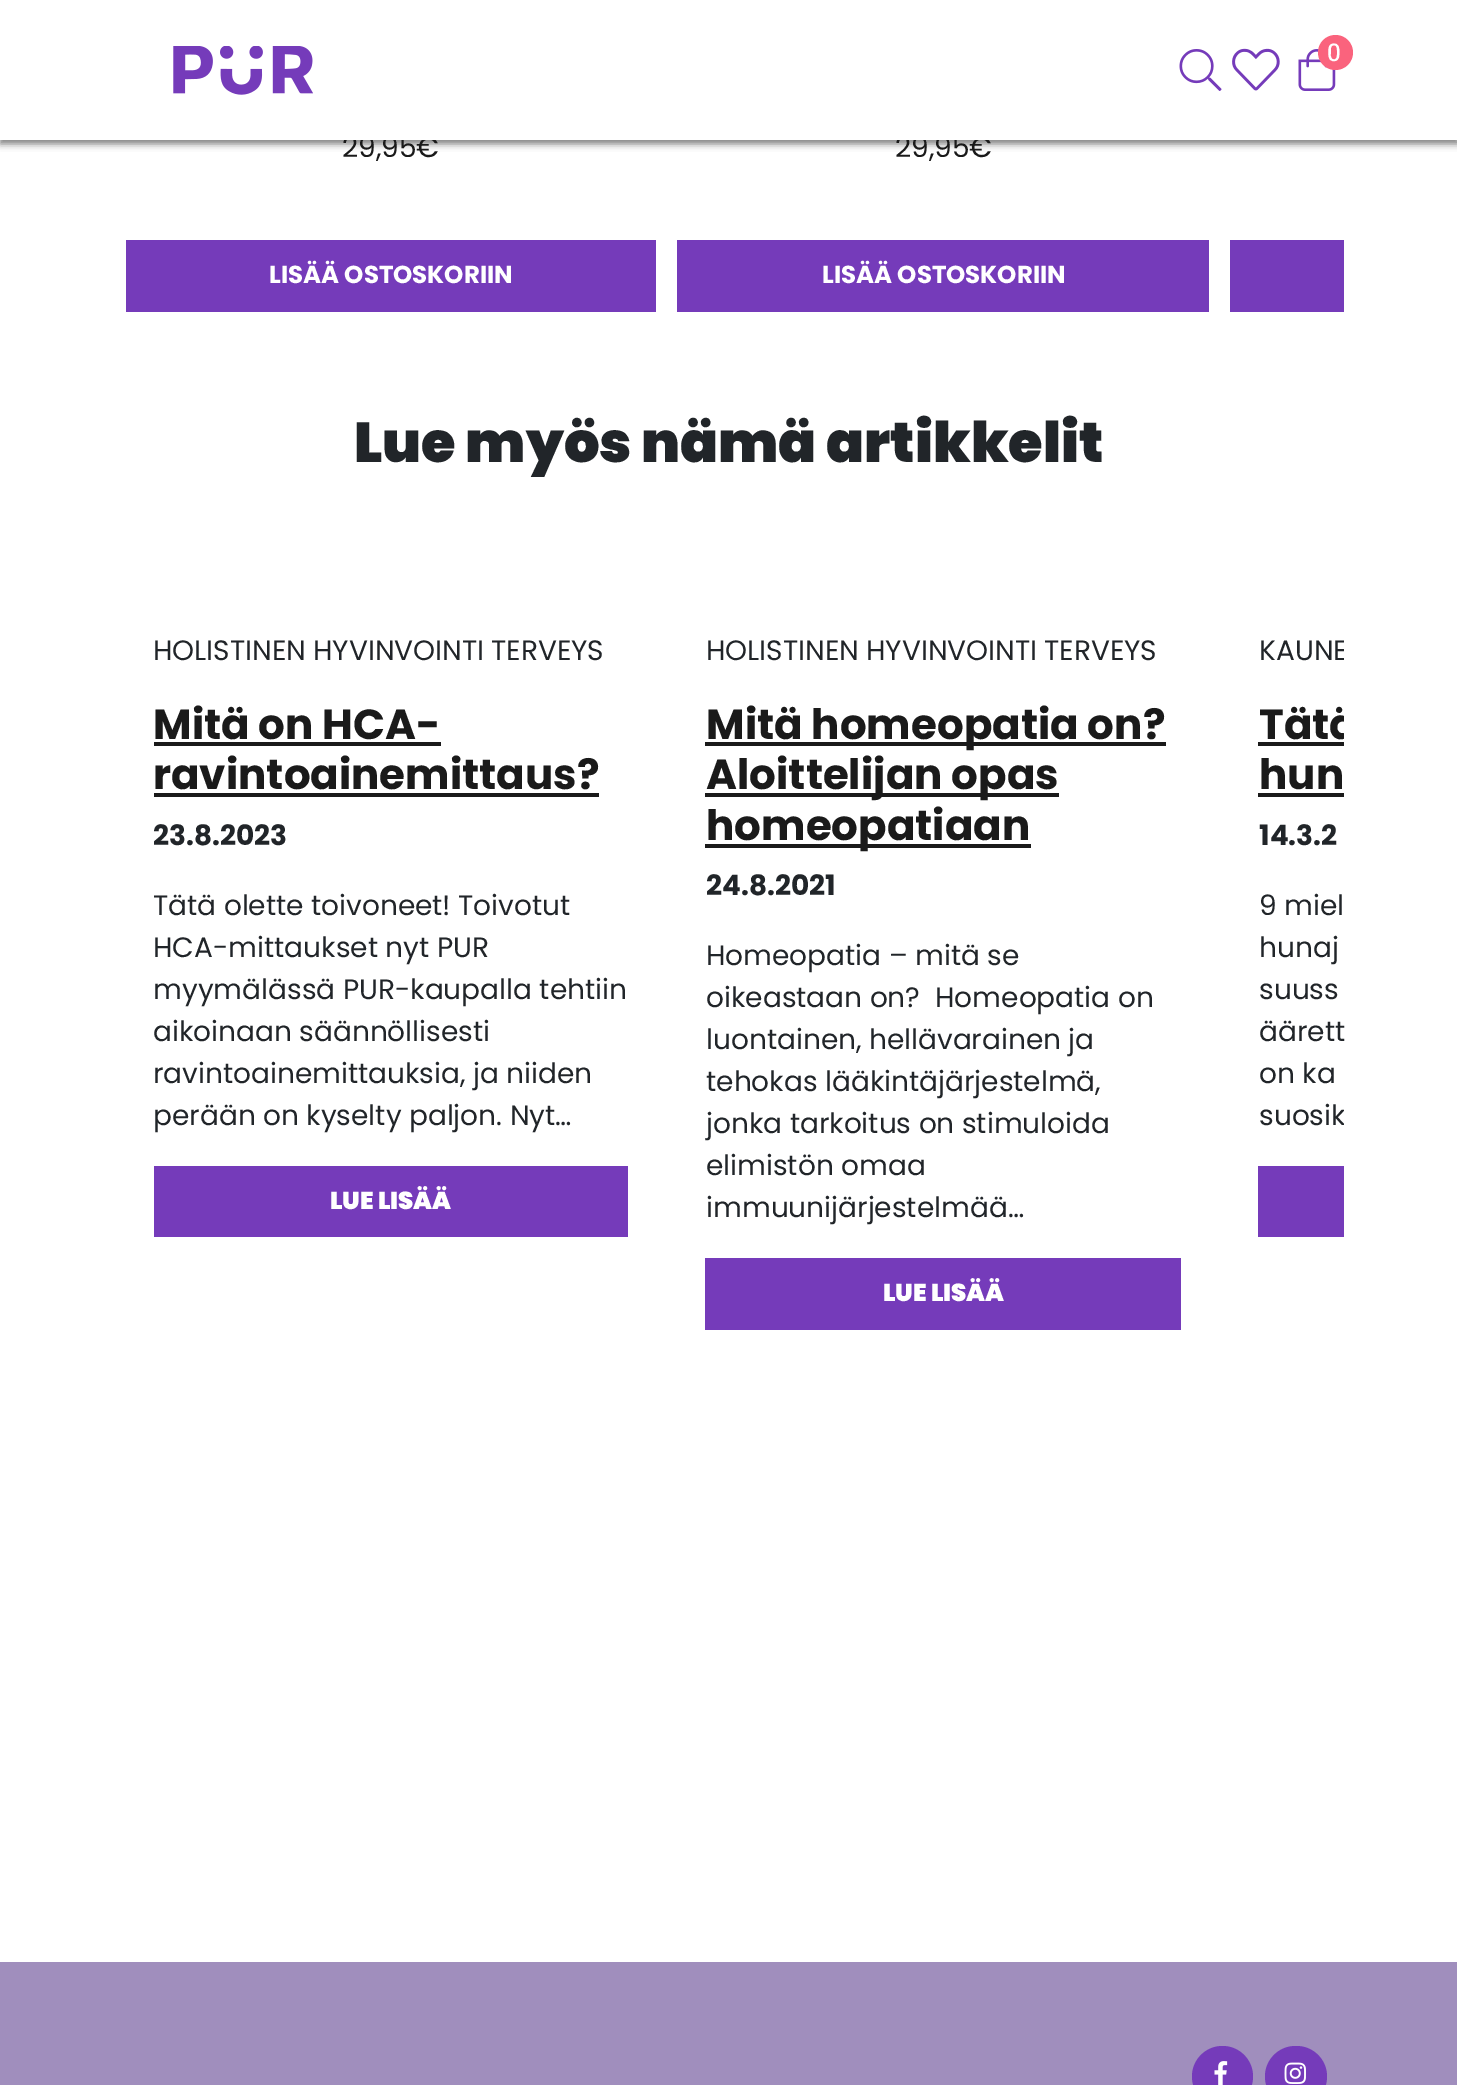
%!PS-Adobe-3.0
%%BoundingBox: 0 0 1457 2085
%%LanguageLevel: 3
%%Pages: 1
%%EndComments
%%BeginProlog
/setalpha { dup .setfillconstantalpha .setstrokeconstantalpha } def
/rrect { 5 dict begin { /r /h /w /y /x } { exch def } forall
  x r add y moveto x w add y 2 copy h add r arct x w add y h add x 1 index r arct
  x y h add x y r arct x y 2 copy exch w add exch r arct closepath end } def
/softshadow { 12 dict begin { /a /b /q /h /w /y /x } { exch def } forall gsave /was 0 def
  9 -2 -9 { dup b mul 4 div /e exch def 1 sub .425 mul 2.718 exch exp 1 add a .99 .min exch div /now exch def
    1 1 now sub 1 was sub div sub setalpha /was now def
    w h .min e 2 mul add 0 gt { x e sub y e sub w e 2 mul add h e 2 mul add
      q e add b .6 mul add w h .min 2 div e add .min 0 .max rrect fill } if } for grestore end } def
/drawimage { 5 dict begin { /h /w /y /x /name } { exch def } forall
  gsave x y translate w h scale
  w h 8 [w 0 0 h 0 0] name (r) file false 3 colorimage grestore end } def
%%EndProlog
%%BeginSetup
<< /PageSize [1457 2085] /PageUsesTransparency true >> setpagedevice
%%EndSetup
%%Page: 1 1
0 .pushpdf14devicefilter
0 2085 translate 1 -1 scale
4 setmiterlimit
1 setgray
0 0 1457 2085 rectfill
0 setgray
0 4 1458 140 0 3.5 0.5 softshadow
0.459 0.231 0.729 setrgbcolor
126 240 530 72 rectfill
677 240 532 72 rectfill
1230 240 114 72 rectfill
0.102 setgray
154 742 287 4 rectfill
154 793 445 4 rectfill
0.459 0.231 0.729 setrgbcolor
154 1166 474 71 rectfill
0.102 setgray
705 742 461 4 rectfill
705 793 354 4 rectfill
705 844 326 4 rectfill
0.459 0.231 0.729 setrgbcolor
705 1258 476 72 rectfill
0.102 setgray
1258 742 86 4 rectfill
1258 793 86 4 rectfill
0.459 0.231 0.729 setrgbcolor
1258 1166 86 71 rectfill
0.627 0.557 0.741 setrgbcolor
0 1962 1457 123 rectfill
0.459 0.231 0.729 setrgbcolor
newpath 1222.5 2076.5 30.5 0 360 arc closepath fill
(images/5.raw) 1214 2061 14 24 drawimage
1265 2046 62 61 30.5 rrect fill
(images/6.raw) 1284 2062 22 22 drawimage
/Poppins-Regular [28 0 0 -28 0 0] selectfont
0.102 setgray
342 157 moveto (29,95€) show
/Poppins-Bold [24.5 0 0 -24.5 0 0] selectfont
1 setgray
269 283 moveto (LISÄÄ OSTOSKORIIN) show
/Poppins-Regular [28 0 0 -28 0 0] selectfont
0.102 setgray
895 157 moveto (29,95€) show
1 setgray
0 0 1457 140 rectfill
(images/4.raw) 1298 49 38 42 drawimage
0.98 0.388 0.49 setrgbcolor
newpath 1335.5 52.5 17.5 0 360 arc closepath fill
/Heebo-Medium [24.5 0 0 -24.5 0 0] selectfont
1 setgray
1327 61 moveto (0) show
(images/2.raw) 1179 49 43 42 drawimage
(images/1.raw) 173 46 140 49 drawimage
(images/3.raw) 1232 48 48 43 drawimage
/Poppins-Bold [24.5 0 0 -24.5 0 0] selectfont
822 283 moveto (LISÄÄ OSTOSKORIIN) show
/Poppins-Black [56 0 0 -56 0 0] selectfont
0.129 0.145 0.161 setrgbcolor
354 462 moveto (Lue myös nämä artikkelit) show
/Poppins-Regular [28 0 0 -28 0 0] selectfont
153 660 moveto (HOLISTINEN HYVINVOINTI TERVEYS) show
/Poppins-Bold [42 0 0 -42 0 0] selectfont
0.102 setgray
153 739 moveto (Mitä on HCA-) show
153 789 moveto (ravintoainemittaus?) show
/Poppins-Bold [28 0 0 -28 0 0] selectfont
0.129 0.145 0.161 setrgbcolor
153 845 moveto (23.8.2023) show
/Poppins-Regular [28 0 0 -28 0 0] selectfont
153 915 moveto (Tätä olette toivoneet! Toivotut) show
153 957 moveto (HCA-mittaukset nyt PUR) show
153 999 moveto (myymälässä PUR-kaupalla tehtiin) show
153 1041 moveto (aikoinaan säännöllisesti) show
153 1083 moveto (ravintoainemittauksia, ja niiden) show
153 1125 moveto (perään on kyselty paljon. Nyt…) show
/Poppins-Black [24.5 0 0 -24.5 0 0] selectfont
1 setgray
330 1209 moveto (LUE LISÄÄ) show
/Poppins-Regular [28 0 0 -28 0 0] selectfont
0.129 0.145 0.161 setrgbcolor
706 660 moveto (HOLISTINEN HYVINVOINTI TERVEYS) show
/Poppins-Bold [42 0 0 -42 0 0] selectfont
0.102 setgray
706 739 moveto (Mitä homeopatia on?) show
706 789 moveto (Aloittelijan opas) show
706 840 moveto (homeopatiaan) show
/Poppins-Bold [28 0 0 -28 0 0] selectfont
0.129 0.145 0.161 setrgbcolor
706 895 moveto (24.8.2021) show
/Poppins-Regular [28 0 0 -28 0 0] selectfont
706 965 moveto (Homeopatia – mitä se) show
706 1007 moveto (oikeastaan on?  Homeopatia on) show
706 1049 moveto (luontainen, hellävarainen ja) show
706 1091 moveto (tehokas lääkintäjärjestelmä,) show
706 1133 moveto (jonka tarkoitus on stimuloida) show
706 1175 moveto (elimistön omaa) show
706 1217 moveto (immuunijärjestelmää…) show
/Poppins-Black [24.5 0 0 -24.5 0 0] selectfont
1 setgray
883 1301 moveto (LUE LISÄÄ) show
gsave
116 518 1228 1402 rectclip
/Poppins-Regular [28 0 0 -28 0 0] selectfont
0.129 0.145 0.161 setrgbcolor
1259 660 moveto (KAUNE) show
/Poppins-Bold [42 0 0 -42 0 0] selectfont
0.102 setgray
1259 739 moveto (Tätä) show
grestore
/Poppins-Bold [42 0 0 -42 0 0] selectfont
0.102 setgray
1259 789 moveto (hun) show
/Poppins-Bold [28 0 0 -28 0 0] selectfont
0.129 0.145 0.161 setrgbcolor
1259 845 moveto (14.3.2) show
/Poppins-Regular [28 0 0 -28 0 0] selectfont
1259 915 moveto (9 miel) show
1259 957 moveto (hunaj) show
1259 999 moveto (suuss) show
1259 1041 moveto (äärett) show
1259 1083 moveto (on ka) show
gsave
116 518 1228 1402 rectclip
1259 1125 moveto (suosik) show
grestore
.poppdf14devicefilter showpage
%%EOF
